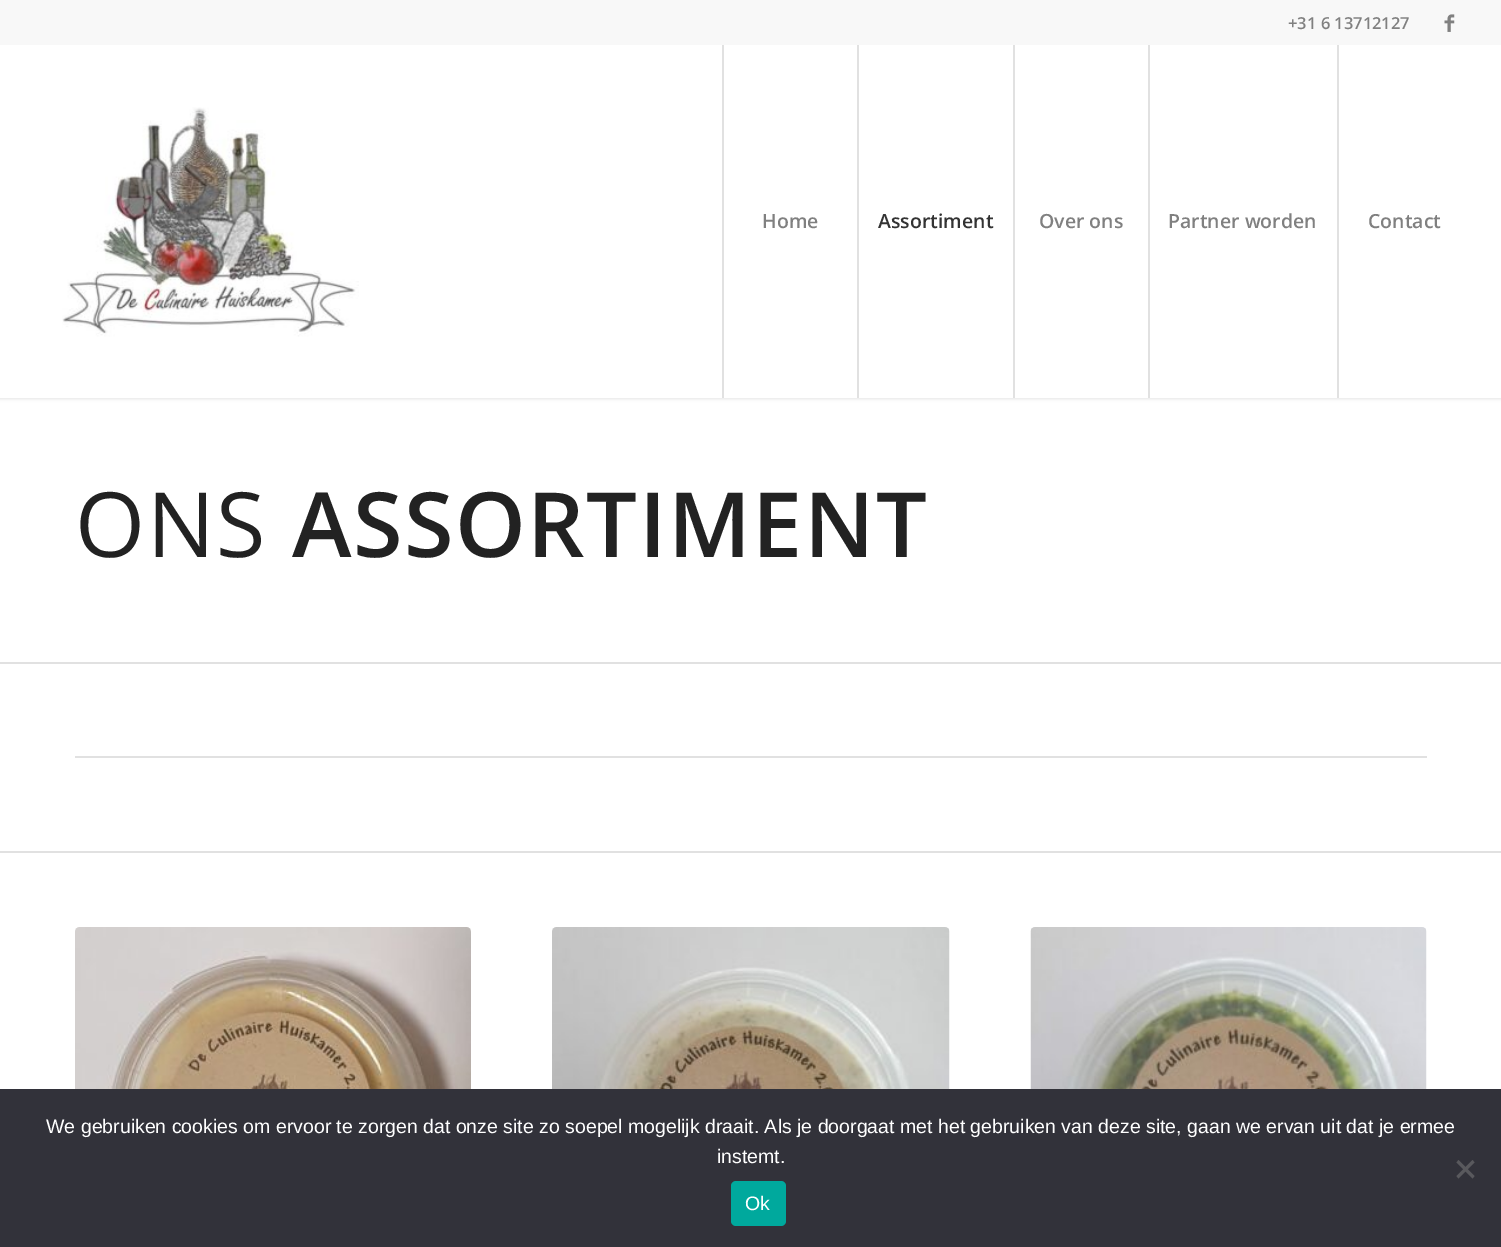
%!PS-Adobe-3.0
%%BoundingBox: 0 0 1501 1247
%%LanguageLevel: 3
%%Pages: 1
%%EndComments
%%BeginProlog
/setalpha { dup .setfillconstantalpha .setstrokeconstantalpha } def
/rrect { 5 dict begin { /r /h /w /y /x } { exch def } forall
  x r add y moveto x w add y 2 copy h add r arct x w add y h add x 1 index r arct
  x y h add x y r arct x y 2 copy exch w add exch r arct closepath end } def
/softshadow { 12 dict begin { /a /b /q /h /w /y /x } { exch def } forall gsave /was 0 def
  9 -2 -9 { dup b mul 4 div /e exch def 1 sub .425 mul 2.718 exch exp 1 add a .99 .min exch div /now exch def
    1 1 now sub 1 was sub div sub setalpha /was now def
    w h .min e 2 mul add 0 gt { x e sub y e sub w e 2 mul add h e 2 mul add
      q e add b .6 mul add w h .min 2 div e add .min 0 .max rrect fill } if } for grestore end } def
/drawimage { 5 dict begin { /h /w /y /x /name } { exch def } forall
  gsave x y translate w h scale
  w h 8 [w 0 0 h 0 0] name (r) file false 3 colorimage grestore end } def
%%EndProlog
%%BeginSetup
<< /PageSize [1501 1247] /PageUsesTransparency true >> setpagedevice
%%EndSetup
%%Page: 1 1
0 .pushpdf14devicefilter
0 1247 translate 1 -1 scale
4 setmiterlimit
1 setgray
0 0 1501 1247 rectfill
0 setgray
-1 -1 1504 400 0 1.5 0.1 softshadow
0.973 setgray
0 0 1501 45 rectfill
(images/1.raw) 1444 14 11 18 drawimage
1 setgray
0 45 1501 353 rectfill
(images/2.raw) 62 107 297 230 drawimage
0.882 setgray
722 45 2 353 rectfill
857 45 2 353 rectfill
1013 45 2 353 rectfill
1148 45 2 353 rectfill
1337 45 2 353 rectfill
0 662 1501 2 rectfill
75 756 1352 2 rectfill
0 851 1501 2 rectfill
(images/3.raw) 75 927 396 162 drawimage
(images/4.raw) 552 927 398 162 drawimage
(images/5.raw) 1030 927 397 162 drawimage
0.196 0.196 0.227 setrgbcolor
0 1089 1501 158 rectfill
0.349 0.349 0.365 setrgbcolor
newpath 1472.5 1160 moveto 1474.5 1162.5 lineto 1458.5 1178.5 lineto 1456.5 1176 lineto closepath fill
newpath 1456.5 1162.5 moveto 1458.5 1160 lineto 1474.5 1176 lineto 1472.5 1178.5 lineto closepath fill
0 0.663 0.616 setrgbcolor
731 1181 55 45 5 rrect fill
/OpenSans-SemiBold [16.5 0 0 -16.5 0 0] selectfont
0.502 setgray
1288 29 moveto (+31 6 13712127) show
/OpenSans-SemiBold [19.5 0 0 -19.5 0 0] selectfont
762 228 moveto (Home) show
0.2 setgray
878 228 moveto (Assortiment) show
0.502 setgray
1039 228 moveto (Over ons) show
1168 228 moveto (Partner worden) show
1368 228 moveto (Contact) show
/OpenSans-Regular [90 0 0 -90 0 0] selectfont
0.133 setgray
75 557 moveto 1.5 0 (ONS) ashow
/OpenSans-SemiBold [90 0 0 -90 0 0] selectfont
292 557 moveto 1.5 0 (ASSORTIMENT) ashow
/LiberationSans-Regular [19.5 0 0 -19.5 0 0] selectfont
1 setgray
46 1133 moveto (We gebruiken cookies om ervoor te zorgen dat onze site zo soepel mogelijk draait. Als je doorgaat met het gebruiken van deze site, gaan we ervan uit dat je ermee) show
717 1163 moveto (instemt.) show
745 1210 moveto (Ok) show
.poppdf14devicefilter showpage
%%EOF
